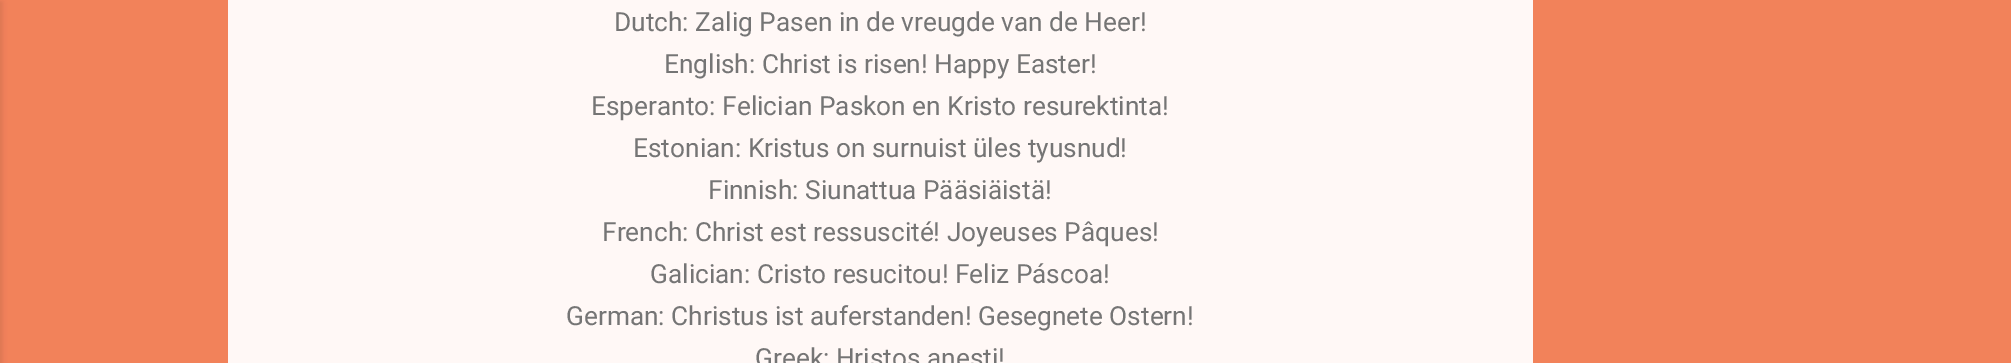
%!PS-Adobe-3.0
%%BoundingBox: 0 0 2011 363
%%LanguageLevel: 3
%%Pages: 1
%%EndComments
%%BeginProlog
/setalpha { dup .setfillconstantalpha .setstrokeconstantalpha } def
/rrect { 5 dict begin { /r /h /w /y /x } { exch def } forall
  x r add y moveto x w add y 2 copy h add r arct x w add y h add x 1 index r arct
  x y h add x y r arct x y 2 copy exch w add exch r arct closepath end } def
/softshadow { 12 dict begin { /a /b /q /h /w /y /x } { exch def } forall gsave /was 0 def
  9 -2 -9 { dup b mul 4 div /e exch def 1 sub .425 mul 2.718 exch exp 1 add a .99 .min exch div /now exch def
    1 1 now sub 1 was sub div sub setalpha /was now def
    w h .min e 2 mul add 0 gt { x e sub y e sub w e 2 mul add h e 2 mul add
      q e add b .6 mul add w h .min 2 div e add .min 0 .max rrect fill } if } for grestore end } def
%%EndProlog
%%BeginSetup
<< /PageSize [2011 363] /PageUsesTransparency true >> setpagedevice
%%EndSetup
%%Page: 1 1
0 .pushpdf14devicefilter
0 363 translate 1 -1 scale
4 setmiterlimit
0.949 0.51 0.353 setrgbcolor
0 0 2011 363 rectfill
0 setgray
-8 2 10 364 0 2.5 0.1 softshadow
1 0.973 0.965 setrgbcolor
228 0 1305 363 rectfill
/Roboto-Regular [26.25 0 0 -26.25 0 0] selectfont
0.459 setgray
614 31 moveto (Dutch: Zalig Pasen in de vreugde van de Heer!) show
664 73 moveto (English: Christ is risen! Happy Easter!) show
591 115 moveto (Esperanto: Felician Paskon en Kristo resurektinta!) show
633 157 moveto (Estonian: Kristus on surnuist üles tyusnud!) show
708 199 moveto (Finnish: Siunattua Pääsiäistä!) show
602 241 moveto (French: Christ est ressuscité! Joyeuses Pâques!) show
650 283 moveto (Galician: Cristo resucitou! Feliz Páscoa!) show
566 325 moveto (German: Christus ist auferstanden! Gesegnete Ostern!) show
755 367 moveto (Greek: Hristos anesti!) show
.poppdf14devicefilter showpage
%%EOF
